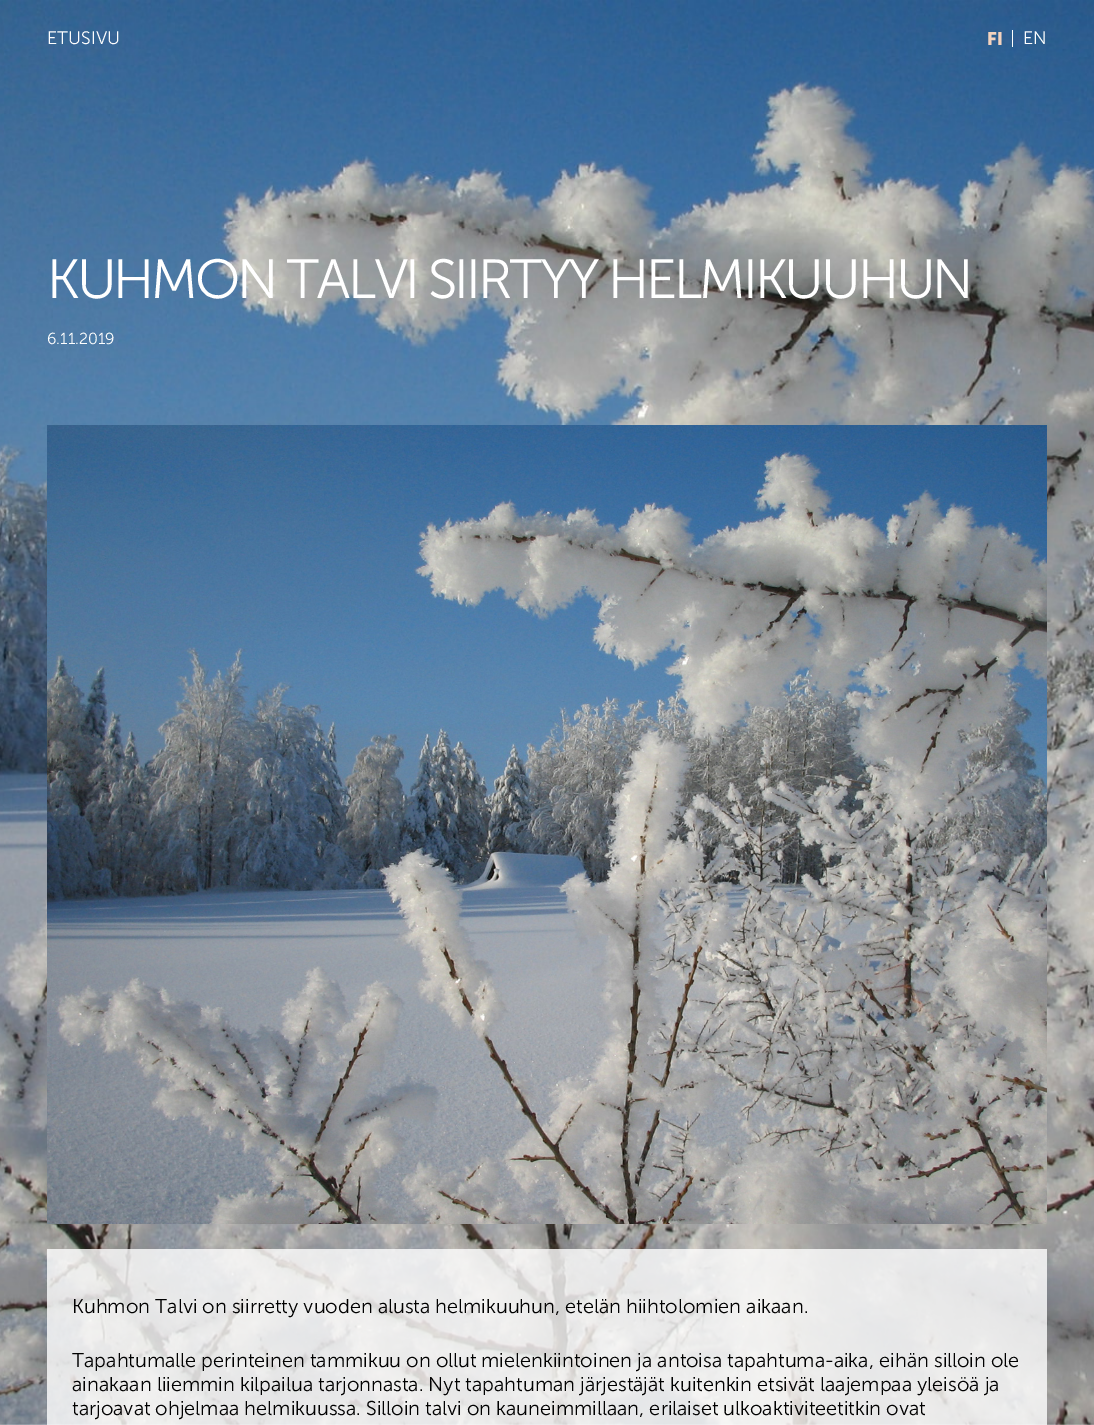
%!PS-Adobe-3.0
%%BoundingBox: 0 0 1094 1425
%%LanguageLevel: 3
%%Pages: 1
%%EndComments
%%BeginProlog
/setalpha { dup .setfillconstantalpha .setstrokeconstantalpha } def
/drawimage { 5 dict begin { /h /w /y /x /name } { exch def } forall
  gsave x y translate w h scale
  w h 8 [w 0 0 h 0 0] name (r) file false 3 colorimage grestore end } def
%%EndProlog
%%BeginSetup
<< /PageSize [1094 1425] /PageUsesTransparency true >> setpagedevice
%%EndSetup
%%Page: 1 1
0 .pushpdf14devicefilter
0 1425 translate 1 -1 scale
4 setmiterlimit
1 setgray
0 0 1094 1425 rectfill
(images/1.raw) 0 0 1094 1425 drawimage
1012 30 1 17 rectfill
(images/2.raw) 47 425 1000 799 drawimage
0.8 setalpha
47 1249 1000 176 rectfill
/MuseoSans-Light [18 0 0 -18 0 0] selectfont
1 setalpha
47 44 moveto (ETUSIVU) show
/MuseoSans-Bold [18 0 0 -18 0 0] selectfont
0.953 0.827 0.745 setrgbcolor
987 45 moveto (FI) show
/MuseoSans-Light [18 0 0 -18 0 0] selectfont
1 setgray
1023 44 moveto (EN) show
/MuseoSans-Light [55 0 0 -55 0 0] selectfont
47 298 moveto -3 0 (KUHMON TALVI SIIRTYY HELMIKUUHUN) ashow
/MuseoSans-Light [16 0 0 -16 0 0] selectfont
47 344 moveto (6.11.2019) show
/MuseoSans-Light [20 0 0 -20 0 0] selectfont
0 setgray
72 1313 moveto (Kuhmon Talvi on siirretty vuoden alusta helmikuuhun, etelän hiihtolomien aikaan.) show
72 1367 moveto (Tapahtumalle perinteinen tammikuu on ollut mielenkiintoinen ja antoisa tapahtuma-aika, eihän silloin ole) show
72 1391 moveto (ainakaan liiemmin kilpailua tarjonnasta. Nyt tapahtuman järjestäjät kuitenkin etsivät laajempaa yleisöä ja) show
72 1415 moveto (tarjoavat ohjelmaa helmikuussa. Silloin talvi on kauneimmillaan, erilaiset ulkoaktiviteetitkin ovat) show
.poppdf14devicefilter showpage
%%EOF
